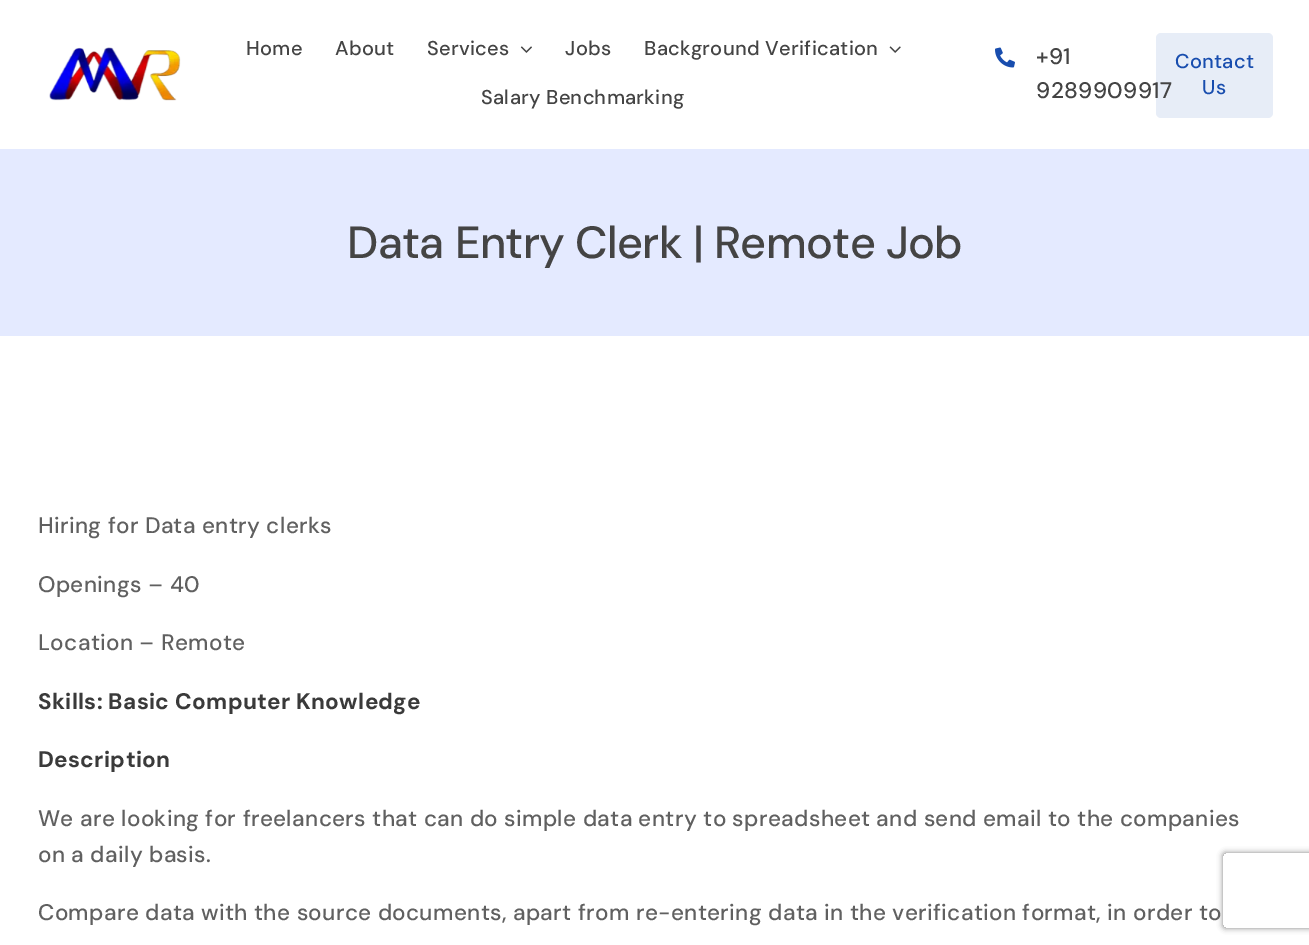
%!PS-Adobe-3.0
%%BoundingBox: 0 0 1309 945
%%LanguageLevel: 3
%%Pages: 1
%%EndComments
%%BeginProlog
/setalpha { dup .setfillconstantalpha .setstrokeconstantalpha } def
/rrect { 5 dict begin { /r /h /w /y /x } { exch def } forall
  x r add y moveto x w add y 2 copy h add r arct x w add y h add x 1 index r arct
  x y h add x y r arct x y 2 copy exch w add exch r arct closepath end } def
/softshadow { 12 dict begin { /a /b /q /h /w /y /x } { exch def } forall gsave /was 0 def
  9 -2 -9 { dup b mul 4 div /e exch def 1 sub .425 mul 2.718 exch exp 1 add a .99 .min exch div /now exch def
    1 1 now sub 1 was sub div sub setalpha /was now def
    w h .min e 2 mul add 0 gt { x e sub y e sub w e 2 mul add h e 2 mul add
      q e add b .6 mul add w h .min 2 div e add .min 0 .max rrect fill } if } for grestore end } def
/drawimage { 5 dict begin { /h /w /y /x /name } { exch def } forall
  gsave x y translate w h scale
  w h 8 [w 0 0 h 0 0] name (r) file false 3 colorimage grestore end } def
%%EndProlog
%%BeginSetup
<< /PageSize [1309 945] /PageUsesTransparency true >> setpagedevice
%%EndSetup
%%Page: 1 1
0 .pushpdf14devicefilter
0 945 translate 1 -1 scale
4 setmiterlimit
1 setgray
0 0 1309 945 rectfill
(images/1.raw) 49 47 132 54 drawimage
(images/2.raw) 520 46 12 7 drawimage
(images/3.raw) 889 46 12 7 drawimage
(images/4.raw) 995 47 20 21 drawimage
0.1 setalpha
0.094 0.302 0.686 setrgbcolor
1156 33 117 85 5 rrect fill
1 setalpha
0.894 0.918 1 setrgbcolor
0 149 1309 187 rectfill
gsave
newpath 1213 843 moveto 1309 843 lineto 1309 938 lineto 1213 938 lineto closepath 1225.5 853 moveto 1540.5 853 lineto 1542 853 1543 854 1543 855.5 curveto 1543 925.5 lineto 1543 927 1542 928 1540.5 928 curveto 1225.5 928 lineto 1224 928 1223 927 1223 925.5 curveto 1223 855.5 lineto 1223 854 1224 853 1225.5 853 curveto closepath eoclip newpath
0.502 setgray
1223 853 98 75 2.5 3 1 softshadow
grestore
/DMSans-Medium [20 0 0 -20 0 0] selectfont
0.267 setgray
246 55 moveto 0.3 0 (Home) ashow
335 55 moveto 0.3 0 (About) ashow
427 55 moveto 0.3 0 (Services) ashow
565 55 moveto 0.3 0 (Jobs) ashow
644 55 moveto 0.3 0 (Background Verification) ashow
481 104 moveto 0.3 0 (Salary Benchmarking) ashow
/DMSans-Medium [22.5 0 0 -22.5 0 0] selectfont
1036 64 moveto 0.34 0 (+91) ashow
1036 98 moveto 0.34 0 (9289909917) ashow
/DMSans-Medium [20 0 0 -20 0 0] selectfont
0.094 0.302 0.682 setrgbcolor
1175 68 moveto 0.3 0 (Contact) ashow
1202 94 moveto 0.3 0 (Us) ashow
/DMSans-Medium [45 0 0 -45 0 0] selectfont
0.267 setgray
347 258 moveto -0.7 0 (Data Entry Clerk | Remote Job) ashow
/DMSans-Medium [22.5 0 0 -22.5 0 0] selectfont
0.376 setgray
38 533 moveto 0.34 0 (Hiring for Data entry clerks) ashow
38 592 moveto 0.34 0 (Openings – 40) ashow
38 650 moveto 0.34 0 (Location – Remote) ashow
/DMSans-Bold [22.5 0 0 -22.5 0 0] selectfont
0.227 setgray
38 709 moveto 0.34 0 (Skills: Basic Computer Knowledge) ashow
38 767 moveto 0.34 0 (Description) ashow
/DMSans-Medium [22.5 0 0 -22.5 0 0] selectfont
0.376 setgray
38 826 moveto 0.34 0 (We are looking for freelancers that can do simple data entry to spreadsheet and send email to the companies) ashow
38 862 moveto 0.34 0 (on a daily basis.) ashow
38 920 moveto 0.34 0 (Compare data with the source documents, apart from re-entering data in the verification format, in order to) ashow
.poppdf14devicefilter showpage
%%EOF
